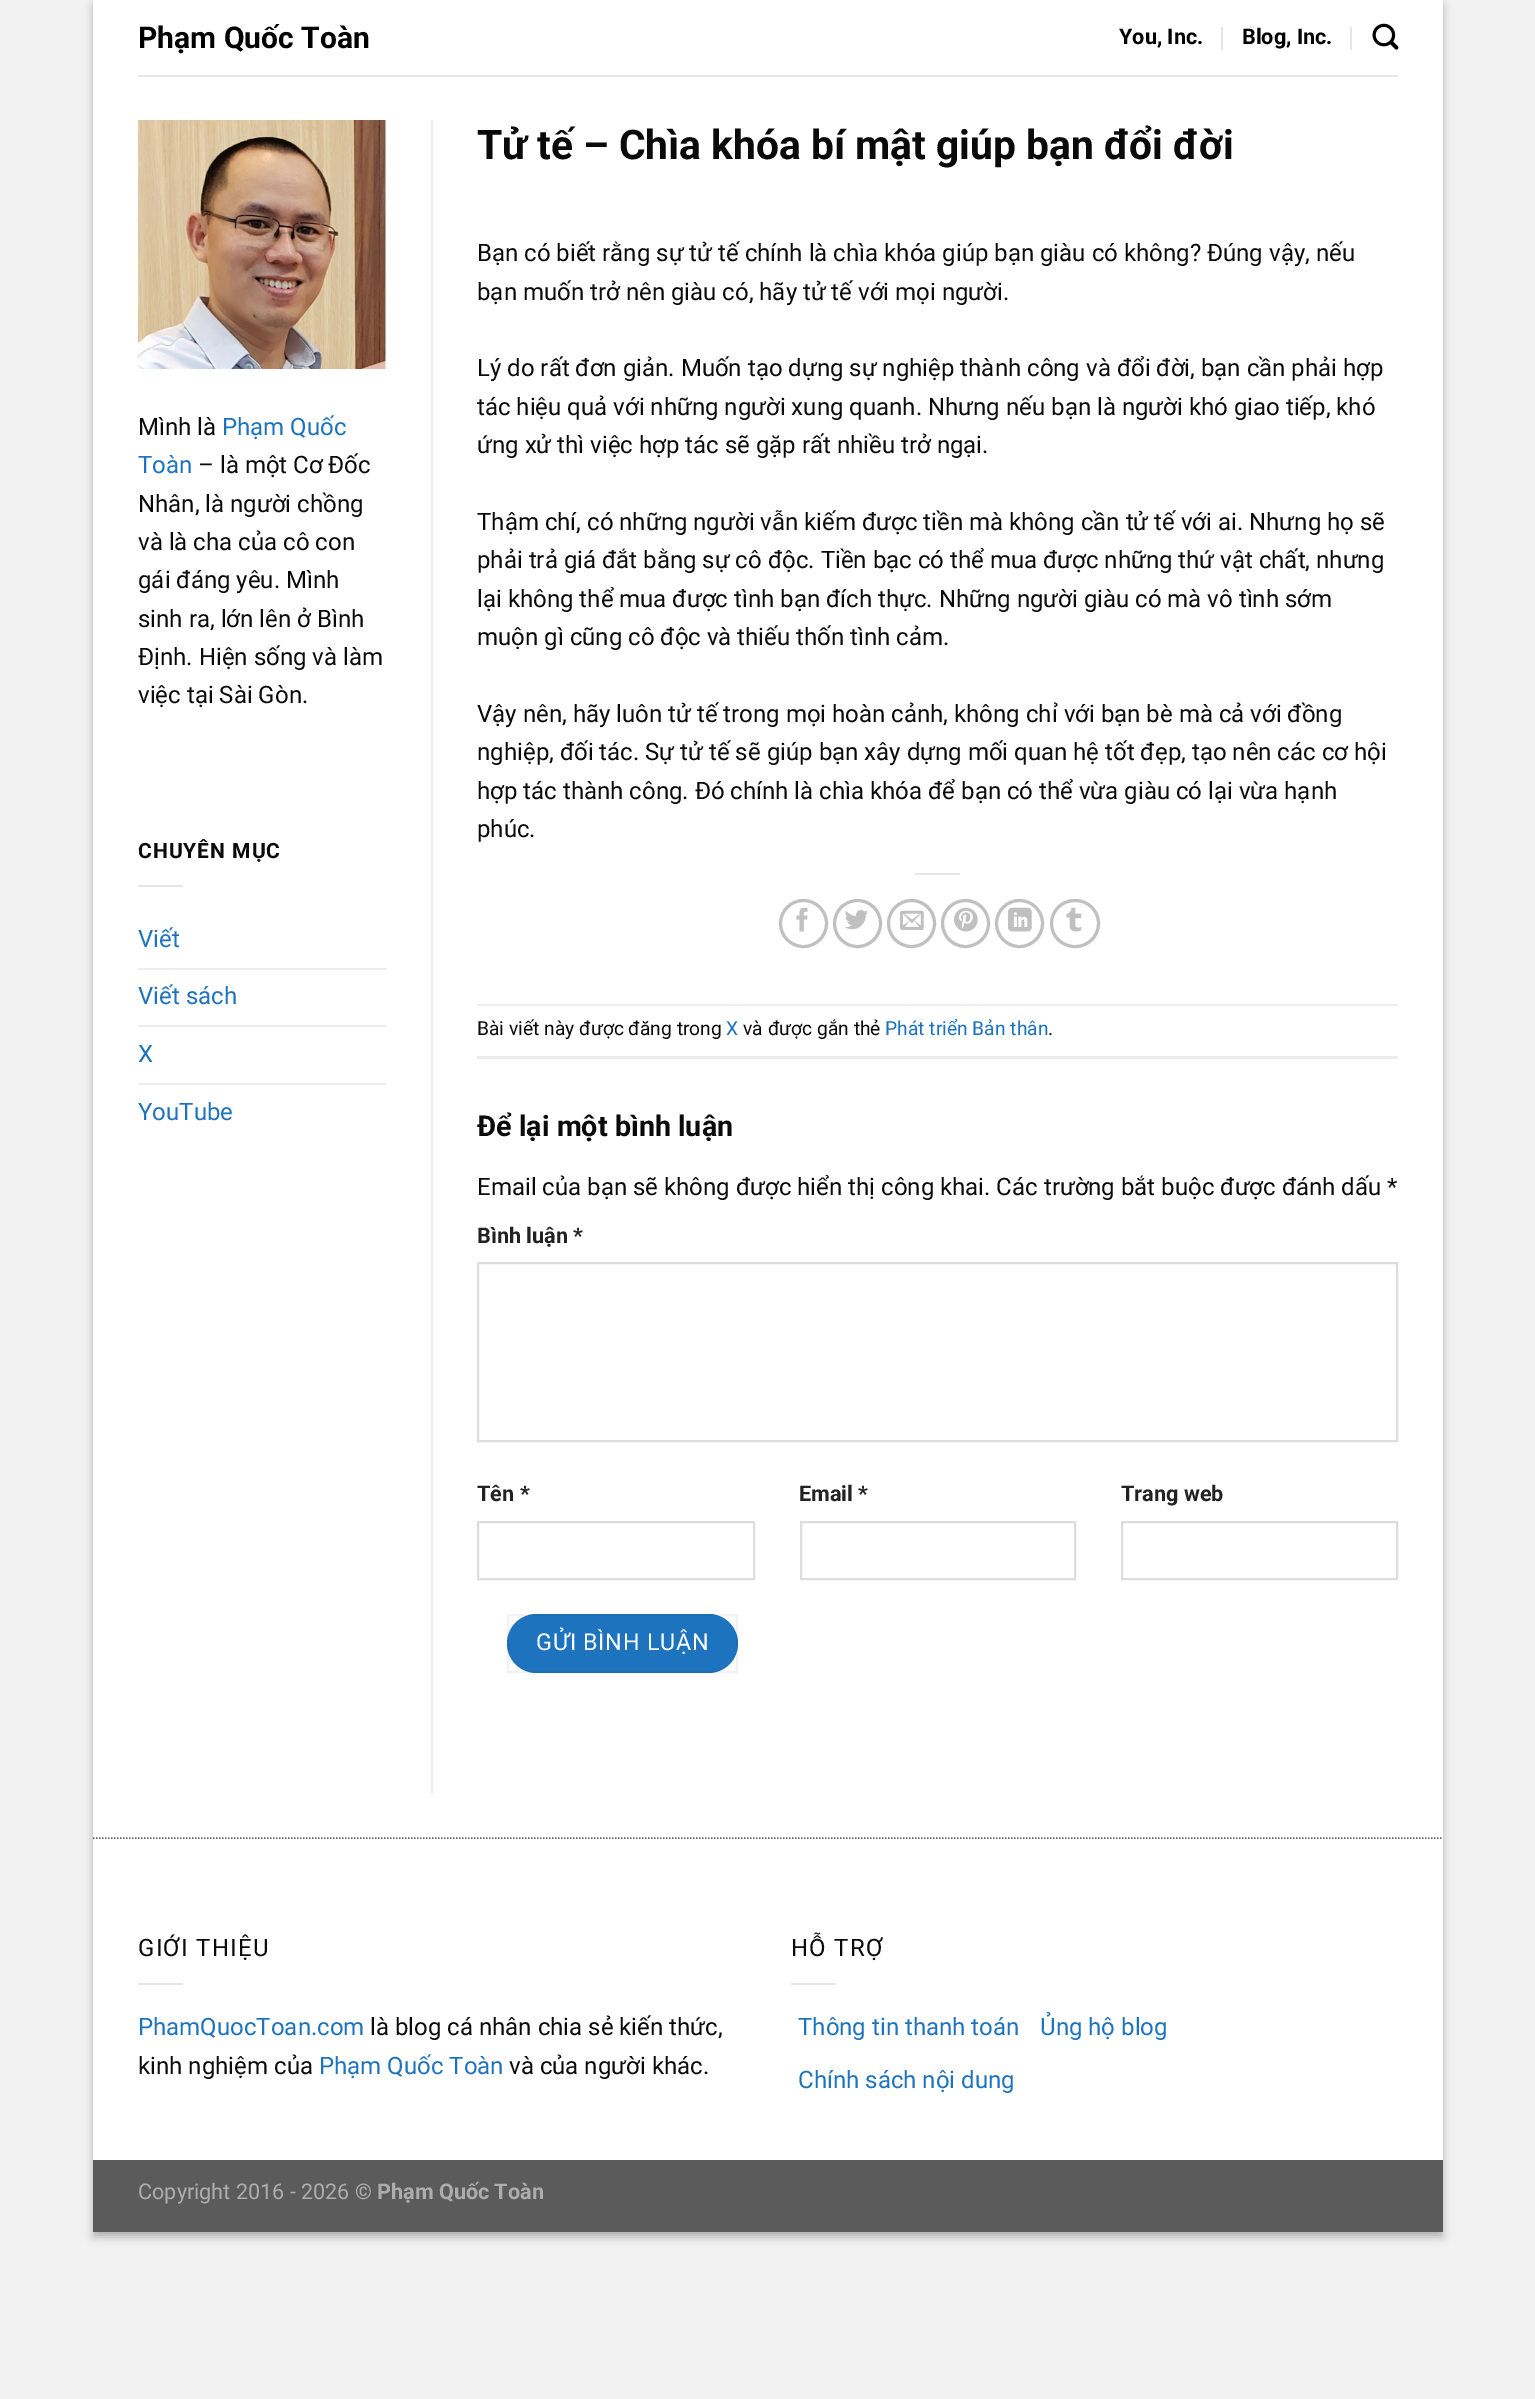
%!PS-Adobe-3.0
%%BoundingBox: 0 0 1535 2399
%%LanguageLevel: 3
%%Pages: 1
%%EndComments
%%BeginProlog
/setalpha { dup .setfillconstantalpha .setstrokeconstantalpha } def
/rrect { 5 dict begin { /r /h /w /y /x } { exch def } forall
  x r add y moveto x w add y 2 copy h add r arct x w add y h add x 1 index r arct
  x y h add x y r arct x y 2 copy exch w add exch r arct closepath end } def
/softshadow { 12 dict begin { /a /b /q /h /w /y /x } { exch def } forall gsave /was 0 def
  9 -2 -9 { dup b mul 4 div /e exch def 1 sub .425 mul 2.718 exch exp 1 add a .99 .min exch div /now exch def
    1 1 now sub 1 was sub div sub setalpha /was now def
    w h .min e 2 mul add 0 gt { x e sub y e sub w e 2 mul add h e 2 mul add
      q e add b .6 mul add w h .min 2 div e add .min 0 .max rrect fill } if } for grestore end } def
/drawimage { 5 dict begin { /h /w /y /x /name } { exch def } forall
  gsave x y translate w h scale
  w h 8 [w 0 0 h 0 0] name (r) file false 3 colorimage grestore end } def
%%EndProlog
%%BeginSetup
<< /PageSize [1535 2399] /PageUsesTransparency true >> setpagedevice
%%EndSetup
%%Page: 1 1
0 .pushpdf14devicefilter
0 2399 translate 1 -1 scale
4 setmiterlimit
0.949 setgray
0 0 1535 2399 rectfill
0 setgray
93 5 1350 2232 0 4.5 0.23 softshadow
99 11 1338 2220 0 4.5 0.16 softshadow
1 setgray
93 0 1350 2160 rectfill
0.902 setgray
1221 27 2 23 rectfill
1350 27 2 23 rectfill
(images/1.raw) 1372 23 27 27 drawimage
0.906 setgray
138 75 1260 2 rectfill
(images/2.raw) 138 120 248 249 drawimage
0.902 setgray
138 885 45 2 rectfill
0.925 setgray
138 968 248 2 rectfill
138 1025 248 2 rectfill
138 1083 248 2 rectfill
431 120 2 1673 rectfill
0.902 setgray
915 873 45 2 rectfill
0.753 setgray
3 setlinewidth
newpath 803.5 923.5 23 0 360 arc closepath stroke
(images/3.raw) 796 907 12 25 drawimage
newpath 857.5 923.5 23 0 360 arc closepath stroke
(images/4.raw) 845 910 23 20 drawimage
newpath 911.5 923.5 23 0 360 arc closepath stroke
(images/5.raw) 900 910 24 20 drawimage
newpath 965.5 923.5 23 0 360 arc closepath stroke
(images/6.raw) 954 907 24 25 drawimage
newpath 1019.5 923.5 23 0 360 arc closepath stroke
(images/7.raw) 1008 907 24 25 drawimage
1051.5 900.5 47 46 23 rrect stroke
(images/8.raw) 1066 907 16 25 drawimage
0.925 setgray
477 1004 921 2 rectfill
477 1056 921 3 rectfill
0.867 setgray
2 setlinewidth
478 1263 919 178 rectstroke
478 1522 276 57 rectstroke
801 1522 274 57 rectstroke
1122 1522 275 57 rectstroke
0.118 0.451 0.745 setrgbcolor
507 1614 231 59 29.5 rrect fill
0.05 setalpha
0 setgray
508 1615 229 57 rectstroke
1 setalpha
0.392 0.412 0.439 setrgbcolor
1.5 setlinewidth
[1.5 1.5] 0 setdash
newpath 93 1838 moveto 1443 1838 lineto stroke
0.902 setgray
138 1983 45 2 rectfill
791 1983 45 2 rectfill
0.357 setgray
93 2160 1350 72 rectfill
/Roboto-Bold [30 0 0 -30 0 0] selectfont
0 setgray
138 48 moveto (Phạm Quốc Toàn) show
/Roboto-Bold [21.6 0 0 -21.6 0 0] selectfont
1119 44 moveto (You, Inc.) show
1242 44 moveto (Blog, Inc.) show
/Roboto-Regular [24 0 0 -24 0 0] selectfont
0.039 setgray
138 435 moveto (Mình là) show
0.118 0.451 0.745 setrgbcolor
222 435 moveto (Phạm Quốc) show
138 473 moveto (Toàn) show
0.039 setgray
198 473 moveto (– là một Cơ Đốc) show
138 512 moveto (Nhân, là người chồng) show
138 550 moveto (và là cha của cô con) show
138 588 moveto (gái đáng yêu. Mình) show
138 627 moveto (sinh ra, lớn lên ở Bình) show
138 665 moveto (Định. Hiện sống và làm) show
138 703 moveto (việc tại Sài Gòn.) show
/Roboto-Bold [21 0 0 -21 0 0] selectfont
138 858 moveto 1 0 (CHUYÊN MỤC) ashow
/Roboto-Regular [24 0 0 -24 0 0] selectfont
0.118 0.451 0.745 setrgbcolor
138 947 moveto (Viết) show
138 1004 moveto (Viết sách) show
138 1062 moveto (X) show
138 1120 moveto (YouTube) show
/Roboto-Bold [40.75 0 0 -40.75 0 0] selectfont
0.039 setgray
477 159 moveto (Tử tế – Chìa khóa bí mật giúp bạn đổi đời) show
/Roboto-Regular [24 0 0 -24 0 0] selectfont
477 261 moveto (Bạn có biết rằng sự tử tế chính là chìa khóa giúp bạn giàu có không? Đúng vậy, nếu) show
477 300 moveto (bạn muốn trở nên giàu có, hãy tử tế với mọi người.) show
477 376 moveto (Lý do rất đơn giản. Muốn tạo dựng sự nghiệp thành công và đổi đời, bạn cần phải hợp) show
477 415 moveto (tác hiệu quả với những người xung quanh. Nhưng nếu bạn là người khó giao tiếp, khó) show
477 453 moveto (ứng xử thì việc hợp tác sẽ gặp rất nhiều trở ngại.) show
477 530 moveto (Thậm chí, có những người vẫn kiếm được tiền mà không cần tử tế với ai. Nhưng họ sẽ) show
477 568 moveto (phải trả giá đắt bằng sự cô độc. Tiền bạc có thể mua được những thứ vật chất, nhưng) show
477 607 moveto (lại không thể mua được tình bạn đích thực. Những người giàu có mà vô tình sớm) show
477 645 moveto (muộn gì cũng cô độc và thiếu thốn tình cảm.) show
477 722 moveto (Vậy nên, hãy luôn tử tế trong mọi hoàn cảnh, không chỉ với bạn bè mà cả với đồng) show
477 760 moveto (nghiệp, đối tác. Sự tử tế sẽ giúp bạn xây dựng mối quan hệ tốt đẹp, tạo nên các cơ hội) show
477 799 moveto (hợp tác thành công. Đó chính là chìa khóa để bạn có thể vừa giàu có lại vừa hạnh) show
477 837 moveto (phúc.) show
/Roboto-Regular [19.25 0 0 -19.25 0 0] selectfont
477 1035 moveto (Bài viết này được đăng trong) show
0.118 0.451 0.745 setrgbcolor
726 1035 moveto (X) show
0.039 setgray
743 1035 moveto (và được gắn thẻ) show
0.118 0.451 0.745 setrgbcolor
885 1035 moveto (Phát triển Bản thân) show
0.039 setgray
1048 1035 moveto (.) show
/Roboto-Bold [28.75 0 0 -28.75 0 0] selectfont
477 1136 moveto (Để lại một bình luận) show
/Roboto-Regular [24 0 0 -24 0 0] selectfont
477 1195 moveto (Email của bạn sẽ không được hiển thị công khai. Các trường bắt buộc được đánh dấu *) show
/Roboto-Bold [21.6 0 0 -21.6 0 0] selectfont
0.133 setgray
477 1243 moveto (Bình luận *) show
477 1501 moveto (Tên *) show
799 1501 moveto (Email *) show
1121 1501 moveto (Trang web) show
/Roboto-Regular [23.25 0 0 -23.25 0 0] selectfont
1 setgray
536 1650 moveto 0.75 0 (GỬI BÌNH LUẬN) ashow
/Roboto-Regular [24 0 0 -24 0 0] selectfont
0.039 setgray
138 1956 moveto 1.25 0 (GIỚI THIỆU) ashow
0.118 0.451 0.745 setrgbcolor
138 2035 moveto (PhamQuocToan.com) show
0.039 setgray
370 2035 moveto (là blog cá nhân chia sẻ kiến thức,) show
138 2074 moveto (kinh nghiệm của) show
0.118 0.451 0.745 setrgbcolor
319 2074 moveto (Phạm Quốc Toàn) show
0.039 setgray
509 2074 moveto (và của người khác.) show
791 1956 moveto 1.25 0 (HỖ TRỢ) ashow
0.118 0.451 0.745 setrgbcolor
798 2035 moveto (Thông tin thanh toán) show
1040 2035 moveto (Ủng hộ blog) show
798 2088 moveto (Chính sách nội dung) show
/Roboto-Regular [21.6 0 0 -21.6 0 0] selectfont
0.678 setgray
138 2199 moveto (Copyright 2016 - 2026 ©) show
/Roboto-Bold [21.6 0 0 -21.6 0 0] selectfont
377 2199 moveto (Phạm Quốc Toàn) show
.poppdf14devicefilter showpage
%%EOF
